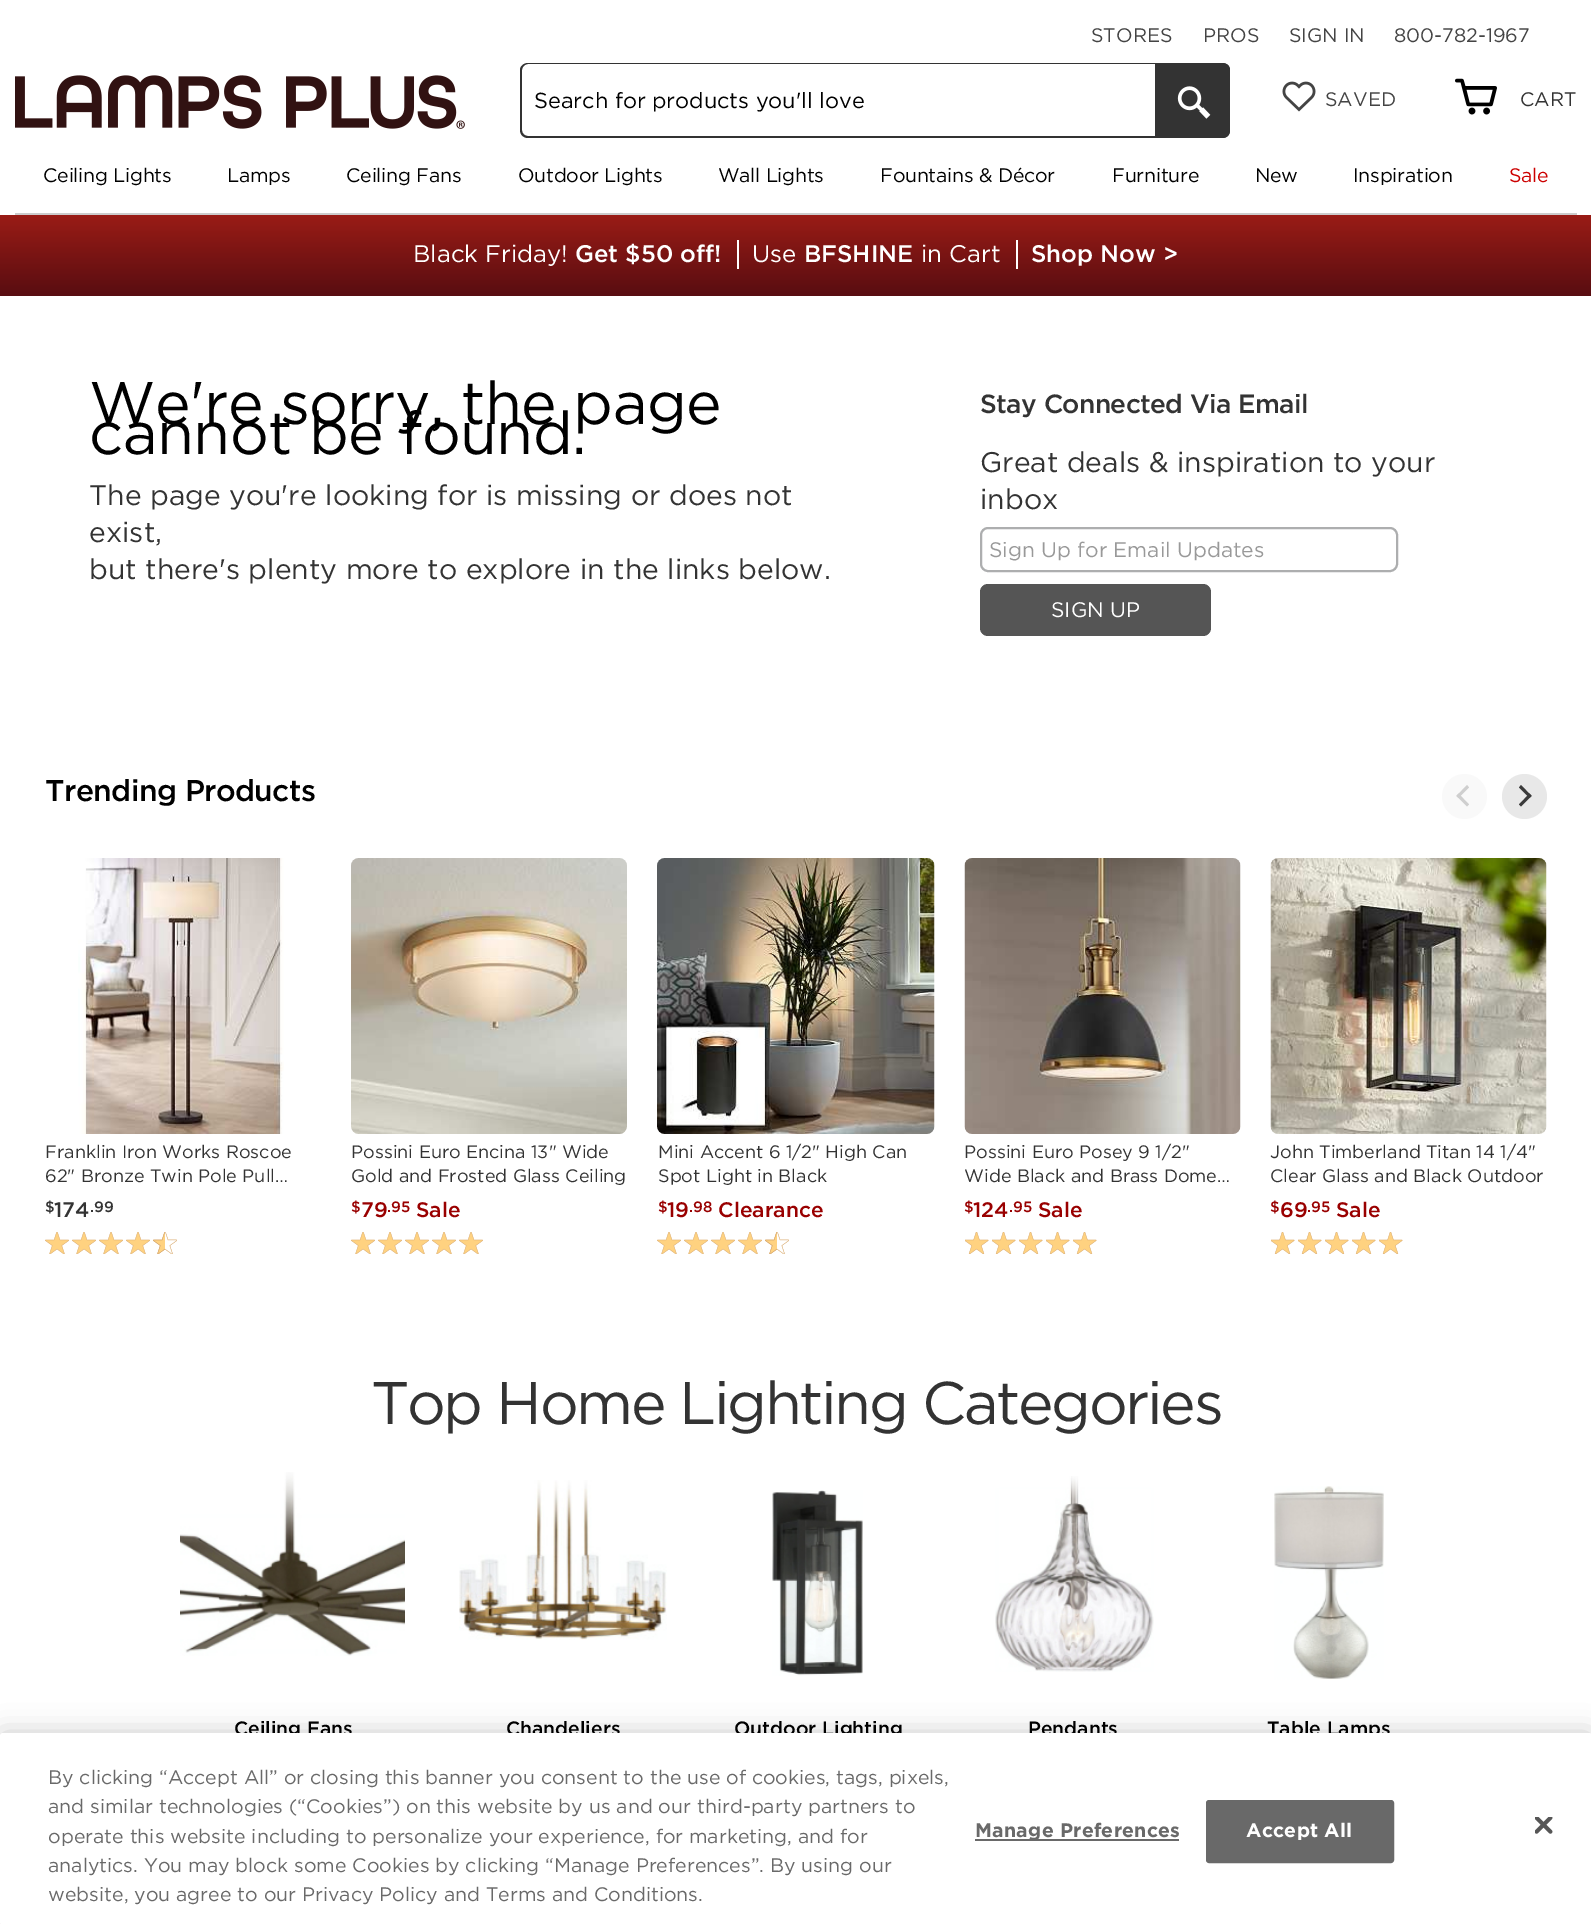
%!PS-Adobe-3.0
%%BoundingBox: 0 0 1591 1924
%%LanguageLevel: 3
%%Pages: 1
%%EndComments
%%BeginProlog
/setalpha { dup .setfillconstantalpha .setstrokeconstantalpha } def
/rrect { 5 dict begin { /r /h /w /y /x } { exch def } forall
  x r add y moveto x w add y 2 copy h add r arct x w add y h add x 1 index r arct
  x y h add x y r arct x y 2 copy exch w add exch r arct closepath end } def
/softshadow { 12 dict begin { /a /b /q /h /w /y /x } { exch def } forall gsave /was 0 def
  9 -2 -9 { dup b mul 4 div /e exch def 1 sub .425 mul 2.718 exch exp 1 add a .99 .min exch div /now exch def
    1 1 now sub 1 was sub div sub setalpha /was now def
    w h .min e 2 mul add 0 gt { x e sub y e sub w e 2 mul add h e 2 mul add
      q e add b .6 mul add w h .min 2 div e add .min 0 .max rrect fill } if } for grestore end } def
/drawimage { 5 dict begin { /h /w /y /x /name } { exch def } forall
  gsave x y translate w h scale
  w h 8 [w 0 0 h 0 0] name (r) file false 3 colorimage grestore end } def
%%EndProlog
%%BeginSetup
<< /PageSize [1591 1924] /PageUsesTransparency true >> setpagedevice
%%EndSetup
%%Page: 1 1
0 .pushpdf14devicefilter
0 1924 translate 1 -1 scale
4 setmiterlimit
1 setgray
0 0 1591 1924 rectfill
0.8 setgray
15 213 1562 2 rectfill
(images/1.raw) 15 75 450 54 drawimage
0.2 setgray
newpath 528 63 moveto 1155 63 lineto 1155 138 lineto 528 138 lineto 524 138 520 135 520 130 curveto 520 70 lineto 520 66 524 63 528 63 curveto closepath 528 64 moveto 1155 64 lineto 1155 136 lineto 528 136 lineto 525 136 522 134 522 130 curveto 522 70 lineto 522 67 525 64 528 64 curveto closepath eofill
newpath 1155 63 moveto 1222 63 lineto 1226.5 63 1230 66.5 1230 71 curveto 1230 130 lineto 1230 134.5 1226.5 138 1222 138 curveto 1155 138 lineto closepath fill
newpath 1155 63 moveto 1222 63 lineto 1227 63 1230 66 1230 70 curveto 1230 130 lineto 1230 135 1227 138 1222 138 curveto 1155 138 lineto closepath 1155 64 moveto 1222 64 lineto 1226 64 1228 67 1228 70 curveto 1228 130 lineto 1228 134 1226 136 1222 136 curveto 1155 136 lineto closepath eofill
(images/2.raw) 1177 86 34 33 drawimage
(images/3.raw) 1282 81 34 31 drawimage
(images/4.raw) 1455 78 42 37 drawimage
gsave newpath 0 215 moveto 1591 215 lineto 1591 296 lineto 0 296 lineto closepath clip newpath
<< /ShadingType 2 /ColorSpace /DeviceRGB /Coords [796 214 796 296] /Extend [true true] /Function << /FunctionType 2 /Domain [0 1] /C0 [0.608 0.11 0.086] /C1 [0.345 0.051 0.067] /N 1 >> >> shfill grestore
1 setgray
737 240 2 29 rectfill
1016 240 2 29 rectfill
0.678 0.682 0.686 setrgbcolor
2 setlinewidth
981 528 416 43 7 rrect stroke
0.333 setgray
980 584 231 52 8 rrect fill
0.976 setgray
newpath 1464.5 796.5 22.5 0 360 arc closepath fill
0.812 setgray
newpath 1469 804.5 moveto 1467 806.5 lineto 1456.5 796 lineto 1458.5 793.5 lineto closepath fill
newpath 1469 787.5 moveto 1458.5 798 lineto 1456.5 796 lineto 1467 785 lineto closepath fill
0.91 setgray
newpath 1524.5 796.5 22.5 0 360 arc closepath fill
0.227 setgray
newpath 1519 787.5 moveto 1521 785 lineto 1531.5 796 lineto 1529.5 798 lineto closepath fill
newpath 1519 804.5 moveto 1529.5 793.5 lineto 1531.5 796 lineto 1521 806.5 lineto closepath fill
(images/5.raw) 78 858 206 276 drawimage
(images/6.raw) 45 1232 24 22 drawimage
(images/6.raw) 72 1232 24 22 drawimage
(images/6.raw) 99 1232 24 22 drawimage
(images/6.raw) 126 1232 24 22 drawimage
(images/7.raw) 153 1232 24 22 drawimage
(images/8.raw) 351 858 276 276 drawimage
(images/6.raw) 351 1232 24 22 drawimage
(images/6.raw) 378 1232 24 22 drawimage
(images/6.raw) 405 1232 24 22 drawimage
(images/6.raw) 432 1232 24 22 drawimage
(images/6.raw) 459 1232 24 22 drawimage
(images/9.raw) 657 858 278 276 drawimage
(images/6.raw) 657 1232 24 22 drawimage
(images/6.raw) 684 1232 24 22 drawimage
(images/6.raw) 711 1232 24 22 drawimage
(images/6.raw) 738 1232 24 22 drawimage
(images/7.raw) 765 1232 24 22 drawimage
(images/10.raw) 964 858 277 276 drawimage
(images/11.raw) 965 1232 24 22 drawimage
(images/11.raw) 992 1232 24 22 drawimage
(images/11.raw) 1019 1232 24 22 drawimage
(images/11.raw) 1046 1232 24 22 drawimage
(images/11.raw) 1073 1232 24 22 drawimage
(images/12.raw) 1270 858 277 276 drawimage
(images/11.raw) 1271 1232 24 22 drawimage
(images/11.raw) 1298 1232 24 22 drawimage
(images/11.raw) 1325 1232 24 22 drawimage
(images/11.raw) 1352 1232 24 22 drawimage
(images/11.raw) 1379 1232 24 22 drawimage
(images/13.raw) 180 1472 225 184 drawimage
(images/14.raw) 459 1480 208 160 drawimage
(images/15.raw) 772 1490 91 186 drawimage
(images/16.raw) 995 1476 159 196 drawimage
(images/17.raw) 1274 1486 110 194 drawimage
0 setgray
0 1733 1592 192 3 13.5 0.2 softshadow
/Gotham-Regular [19.5 0 0 -19.5 0 0] selectfont
0.267 setgray
1091 42 moveto (STORES) show
1203 42 moveto (PROS) show
1289 42 moveto (SIGN IN) show
1394 42 moveto (800-782-1967) show
/Gotham-Regular [21.75 0 0 -21.75 0 0] selectfont
0 setgray
534 108 moveto (Search for products you'll love) show
/Gotham-Regular [19.5 0 0 -19.5 0 0] selectfont
0.267 setgray
1325 106 moveto (SAVED) show
0.2 setgray
1520 106 moveto (CART) show
0 setgray
43 182 moveto -0.25 0 (Ceiling Lights) ashow
227 182 moveto -0.25 0 (Lamps) ashow
346 182 moveto -0.25 0 (Ceiling Fans) ashow
518 182 moveto -0.25 0 (Outdoor Lights) ashow
718 182 moveto -0.25 0 (Wall Lights) ashow
880 182 moveto -0.25 0 (Fountains & Décor) ashow
1112 182 moveto -0.25 0 (Furniture) ashow
1255 182 moveto -0.25 0 (New) ashow
1353 182 moveto -0.25 0 (Inspiration) ashow
0.8 0 0 setrgbcolor
1509 182 moveto -0.25 0 (Sale) ashow
/Gotham-Regular [24 0 0 -24 0 0] selectfont
1 setgray
413 262 moveto (Black Friday!) show
/Gotham-Medium [24 0 0 -24 0 0] selectfont
575 262 moveto (Get $50 off!) show
/Gotham-Regular [24 0 0 -24 0 0] selectfont
752 262 moveto (Use) show
/Gotham-Medium [24 0 0 -24 0 0] selectfont
804 262 moveto (BFSHINE) show
/Gotham-Regular [24 0 0 -24 0 0] selectfont
921 262 moveto (in Cart) show
/Gotham-Medium [24 0 0 -24 0 0] selectfont
1031 262 moveto (Shop Now >) show
/Gotham-Regular [60 0 0 -60 0 0] selectfont
0 setgray
89 424 moveto -0.6 0 (We're sorry, the page) ashow
89 454 moveto -0.6 0 (cannot be found.) ashow
/Gotham-Regular [28.3 0 0 -28.3 0 0] selectfont
0.2 setgray
89 505 moveto (The page you're looking for is missing or does not) show
89 542 moveto (exist,) show
89 579 moveto (but there's plenty more to explore in the links below.) show
/Gotham-Medium [26.25 0 0 -26.25 0 0] selectfont
980 413 moveto -0.6 0 (Stay Connected Via Email) ashow
/Gotham-Regular [28.3 0 0 -28.3 0 0] selectfont
980 472 moveto (Great deals & inspiration to your) show
980 509 moveto (inbox) show
/Gotham-Regular [21 0 0 -21 0 0] selectfont
0.6 setgray
989 557 moveto (Sign Up for Email Updates) show
1 setgray
1051 617 moveto (SIGN UP) show
/Gotham-Medium [30 0 0 -30 0 0] selectfont
0 setgray
45 801 moveto -0.6 0 (Trending Products) ashow
/Gotham-Regular [18 0 0 -18 0 0] selectfont
0.2 setgray
45 1158 moveto (Franklin Iron Works Roscoe) show
45 1182 moveto (62" Bronze Twin Pole Pull…) show
/Gotham-Medium [15 0 0 -15 0 0] selectfont
45 1212 moveto ($) show
/Gotham-Medium [21 0 0 -21 0 0] selectfont
54 1217 moveto (174) show
/Gotham-Medium [15 0 0 -15 0 0] selectfont
90 1212 moveto (.99) show
/Gotham-Regular [18 0 0 -18 0 0] selectfont
351 1158 moveto (Possini Euro Encina 13" Wide) show
351 1182 moveto (Gold and Frosted Glass Ceiling) show
/Gotham-Medium [15 0 0 -15 0 0] selectfont
0.6 0 0 setrgbcolor
351 1212 moveto ($) show
/Gotham-Medium [21 0 0 -21 0 0] selectfont
361 1217 moveto (79) show
/Gotham-Medium [15 0 0 -15 0 0] selectfont
387 1212 moveto (.95) show
/Gotham-Medium [21 0 0 -21 0 0] selectfont
416 1217 moveto (Sale) show
/Gotham-Regular [18 0 0 -18 0 0] selectfont
0.2 setgray
658 1158 moveto (Mini Accent 6 1/2" High Can) show
658 1182 moveto (Spot Light in Black) show
/Gotham-Medium [15 0 0 -15 0 0] selectfont
0.6 0 0 setrgbcolor
658 1212 moveto ($) show
/Gotham-Medium [21 0 0 -21 0 0] selectfont
667 1217 moveto (19) show
/Gotham-Medium [15 0 0 -15 0 0] selectfont
689 1212 moveto (.98) show
/Gotham-Medium [21 0 0 -21 0 0] selectfont
718 1217 moveto (Clearance) show
/Gotham-Regular [18 0 0 -18 0 0] selectfont
0.2 setgray
964 1158 moveto (Possini Euro Posey 9 1/2") show
964 1182 moveto (Wide Black and Brass Dome…) show
/Gotham-Medium [15 0 0 -15 0 0] selectfont
0.6 0 0 setrgbcolor
964 1212 moveto ($) show
/Gotham-Medium [21 0 0 -21 0 0] selectfont
973 1217 moveto (124) show
/Gotham-Medium [15 0 0 -15 0 0] selectfont
1009 1212 moveto (.95) show
/Gotham-Medium [21 0 0 -21 0 0] selectfont
1038 1217 moveto (Sale) show
/Gotham-Regular [18 0 0 -18 0 0] selectfont
0.2 setgray
1270 1158 moveto (John Timberland Titan 14 1/4") show
1270 1182 moveto (Clear Glass and Black Outdoor) show
/Gotham-Medium [15 0 0 -15 0 0] selectfont
0.6 0 0 setrgbcolor
1270 1212 moveto ($) show
/Gotham-Medium [21 0 0 -21 0 0] selectfont
1280 1217 moveto (69) show
/Gotham-Medium [15 0 0 -15 0 0] selectfont
1307 1212 moveto (.95) show
/Gotham-Medium [21 0 0 -21 0 0] selectfont
1336 1217 moveto (Sale) show
/Gotham-Regular [60 0 0 -60 0 0] selectfont
0.2 setgray
371 1424 moveto -2.4 0 (Top Home Lighting Categories) ashow
/Gotham-Medium [19.25 0 0 -19.25 0 0] selectfont
0 setgray
234 1735 moveto (Ceiling Fans) show
506 1735 moveto (Chandeliers) show
734 1735 moveto (Outdoor Lighting) show
1028 1735 moveto (Pendants) show
1267 1735 moveto (Table Lamps) show
1 setgray
0 1733 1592 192 3 rrect fill
/Gotham-Regular [19.5 0 0 -19.5 0 0] selectfont
0.412 setgray
48 1784 moveto (By clicking “Accept All” or closing this banner you consent to the use of cookies, tags, pixels,) show
48 1813 moveto (and similar technologies \(“Cookies”\) on this website by us and our third-party partners to) show
48 1843 moveto (operate this website including to personalize your experience, for marketing, and for) show
48 1872 moveto (analytics. You may block some Cookies by clicking “Manage Preferences”.) show
770 1872 moveto (By using our) show
48 1901 moveto (website, you agree to our Privacy Policy and Terms and Conditions.) show
975 1839 204 2 rectfill
/Gotham-Bold [19.5 0 0 -19.5 0 0] selectfont
975 1837 moveto 0.25 0 (Manage Preferences) ashow
1207 1801 186 61 2 rrect gsave fill grestore
stroke
1 setgray
1246 1837 moveto 0.25 0 (Accept All) ashow
(images/18.raw) 1535 1817 18 17 drawimage
.poppdf14devicefilter showpage
%%EOF
